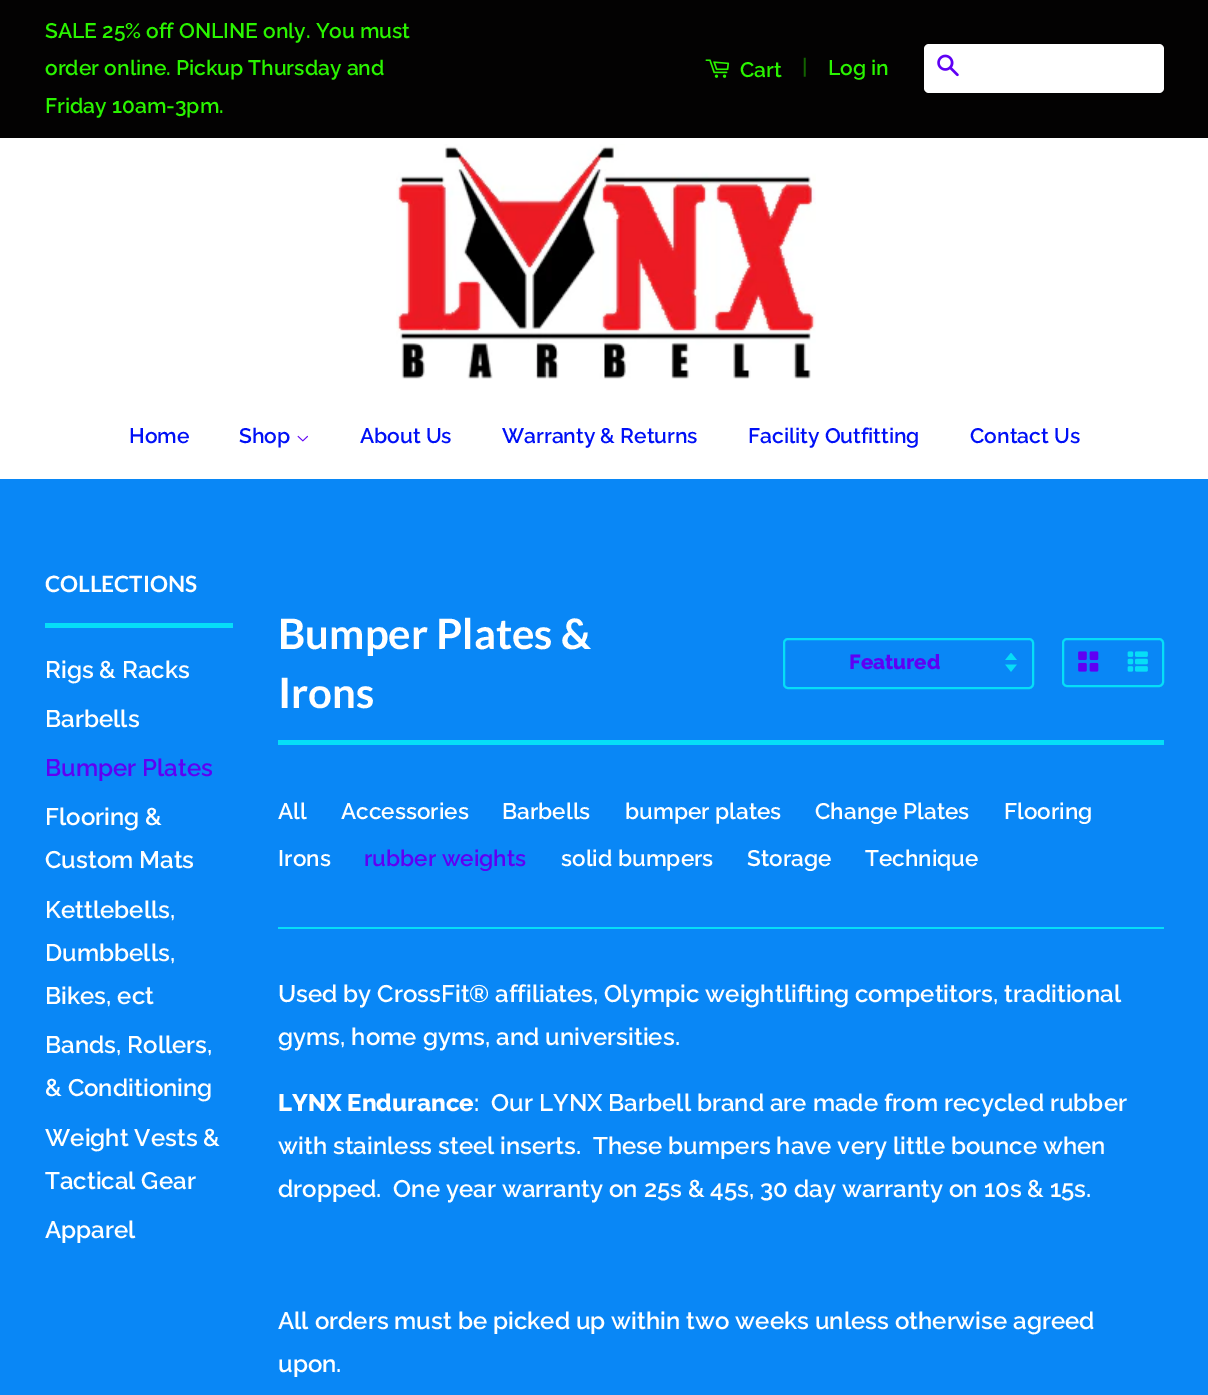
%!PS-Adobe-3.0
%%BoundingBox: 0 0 1208 1395
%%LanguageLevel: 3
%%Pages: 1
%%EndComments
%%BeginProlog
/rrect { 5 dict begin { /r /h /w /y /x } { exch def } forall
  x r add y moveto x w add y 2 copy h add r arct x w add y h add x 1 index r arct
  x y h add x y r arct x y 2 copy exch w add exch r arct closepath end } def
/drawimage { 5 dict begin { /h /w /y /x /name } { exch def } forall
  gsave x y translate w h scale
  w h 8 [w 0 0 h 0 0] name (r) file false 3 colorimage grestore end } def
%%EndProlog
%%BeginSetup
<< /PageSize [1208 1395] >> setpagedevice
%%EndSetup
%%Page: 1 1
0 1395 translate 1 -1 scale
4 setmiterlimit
0.035 0.529 0.965 setrgbcolor
0 0 1208 1395 rectfill
0.012 0.008 0.008 setrgbcolor
0 0 1208 138 rectfill
(images/1.raw) 705 59 25 19 drawimage
1 setgray
924 44 240 49 5 rrect fill
(images/2.raw) 937 54 22 23 drawimage
0 138 1208 341 rectfill
(images/3.raw) 396 144 420 235 drawimage
(images/4.raw) 297 435 11 7 drawimage
0.024 0.871 0.969 setrgbcolor
45 623 188 5 rectfill
278 740 886 5 rectfill
(images/5.raw) 1005 653 12 19 drawimage
2 setlinewidth
784 639 249 49 4 rrect stroke
1063 639 100 47 4 rrect stroke
(images/6.raw) 1078 651 21 21 drawimage
(images/7.raw) 1127 651 21 21 drawimage
278 927 886 2 rectfill
/Raleway-SemiBold [21 0 0 -21 0 0] selectfont
0.165 0.957 0 setrgbcolor
45 38 moveto (SALE 25% off ONLINE only. You must) show
45 75 moveto (order online. Pickup Thursday and) show
45 113 moveto (Friday 10am-3pm.) show
740 77 moveto (Cart) show
0.075 0.388 0.004 setrgbcolor
802 74 moveto (|) show
0.165 0.957 0 setrgbcolor
828 75 moveto (Log in) show
0 0.063 0.965 setrgbcolor
129 443 moveto (Home) show
239 443 moveto (Shop) show
360 443 moveto (About Us) show
502 443 moveto (Warranty & Returns) show
748 443 moveto (Facility Outfitting) show
970 443 moveto (Contact Us) show
/Lato-Bold [22.5 0 0 -22.5 0 0] selectfont
1 setgray
45 592 moveto (COLLECTIONS) show
/Raleway-SemiBold [24 0 0 -24 0 0] selectfont
45 678 moveto (Rigs & Racks) show
45 727 moveto (Barbells) show
0.373 0 0.957 setrgbcolor
45 776 moveto (Bumper Plates) show
1 setgray
45 825 moveto (Flooring &) show
45 868 moveto (Custom Mats) show
45 918 moveto (Kettlebells,) show
45 961 moveto (Dumbbells,) show
45 1004 moveto (Bikes, ect) show
45 1053 moveto (Bands, Rollers,) show
45 1096 moveto (& Conditioning) show
45 1146 moveto (Weight Vests &) show
45 1189 moveto (Tactical Gear) show
45 1238 moveto (Apparel) show
/Lato-Bold [42 0 0 -42 0 0] selectfont
278 649 moveto (Bumper Plates &) show
278 708 moveto (Irons) show
/Raleway-ExtraBold [20.5 0 0 -20.5 0 0] selectfont
0.373 0 0.957 setrgbcolor
849 669 moveto (Featured) show
/Raleway-SemiBold [22.5 0 0 -22.5 0 0] selectfont
1 setgray
278 819 moveto (All) show
341 819 moveto (Accessories) show
502 819 moveto (Barbells) show
625 819 moveto (bumper plates) show
815 819 moveto (Change Plates) show
1004 819 moveto (Flooring) show
278 866 moveto (Irons) show
0.373 0 0.957 setrgbcolor
364 866 moveto (rubber weights) show
1 setgray
561 866 moveto (solid bumpers) show
747 866 moveto (Storage) show
865 866 moveto (Technique) show
/Raleway-SemiBold [24 0 0 -24 0 0] selectfont
278 1002 moveto (Used by CrossFit® affiliates, Olympic weightlifting competitors, traditional) show
278 1045 moveto (gyms, home gyms, and universities.) show
/Raleway-ExtraBold [24 0 0 -24 0 0] selectfont
278 1111 moveto (LYNX Endurance) show
/Raleway-SemiBold [24 0 0 -24 0 0] selectfont
474 1111 moveto (:  Our LYNX Barbell brand are made from recycled rubber) show
278 1154 moveto (with stainless steel inserts.  These bumpers have very little bounce when) show
278 1197 moveto (dropped.  One year warranty on 25s & 45s, 30 day warranty on 10s & 15s.) show
278 1329 moveto (All orders must be picked up within two weeks unless otherwise agreed) show
278 1372 moveto (upon.) show
showpage
%%EOF
